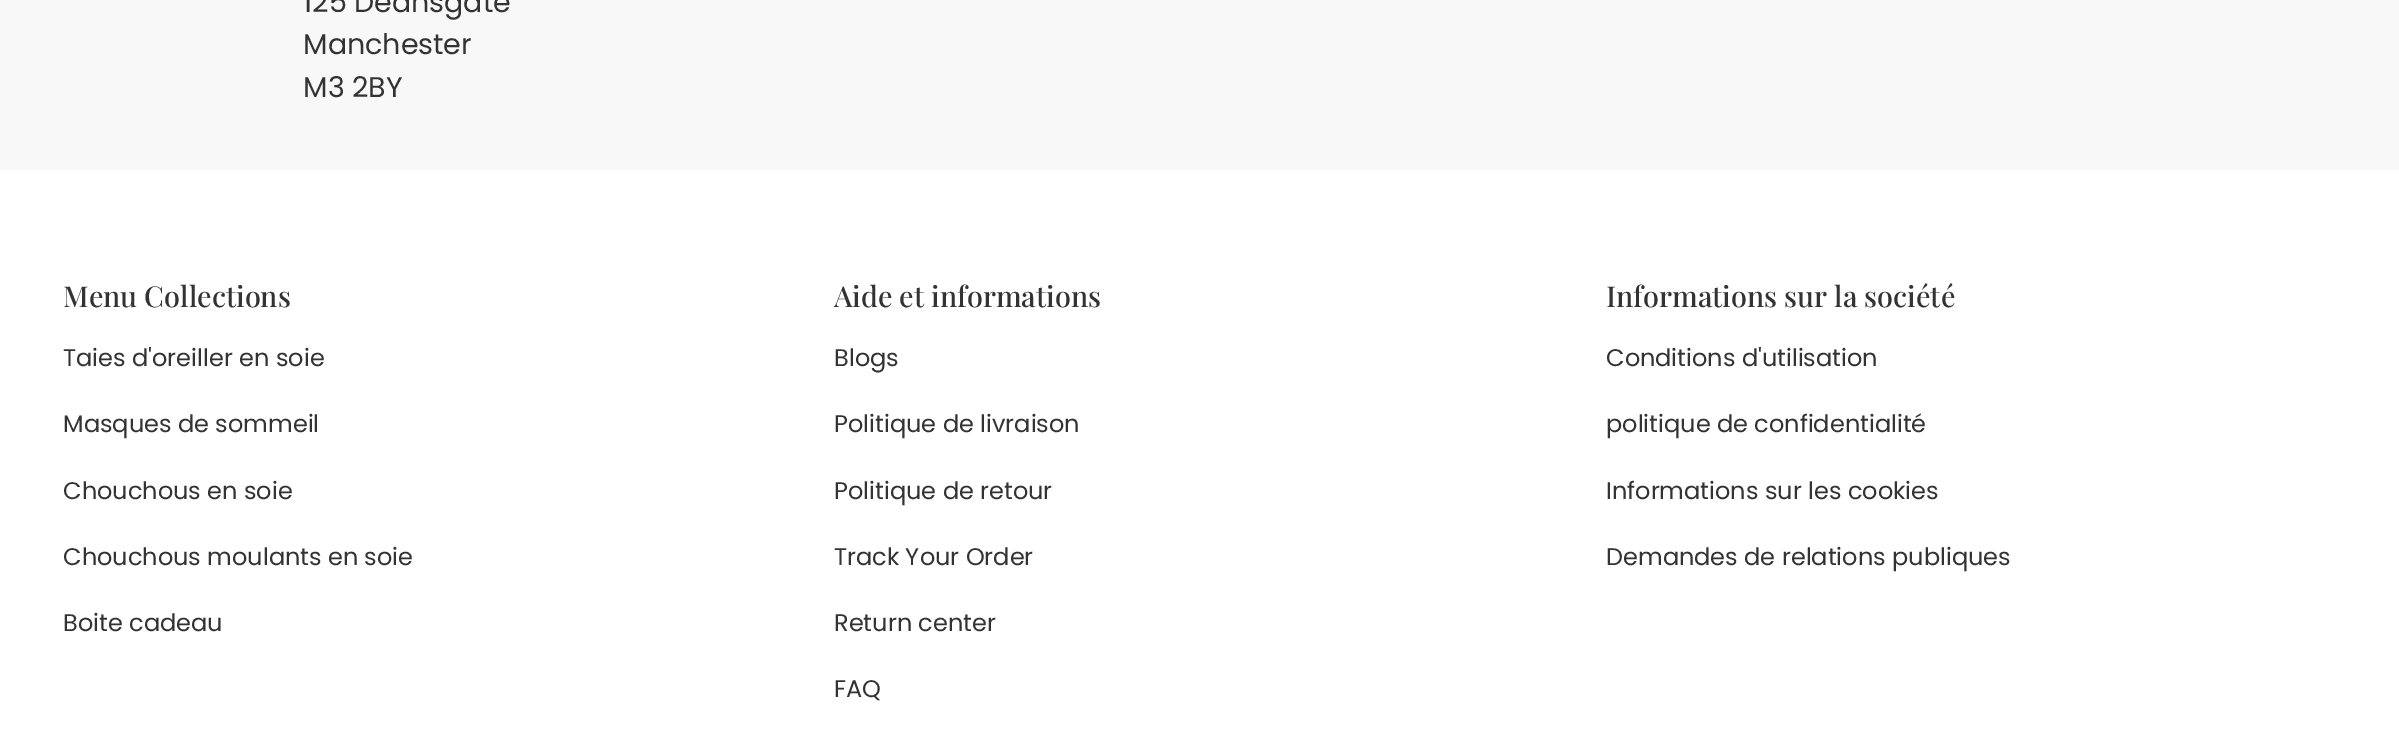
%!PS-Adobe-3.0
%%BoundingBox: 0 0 2399 734
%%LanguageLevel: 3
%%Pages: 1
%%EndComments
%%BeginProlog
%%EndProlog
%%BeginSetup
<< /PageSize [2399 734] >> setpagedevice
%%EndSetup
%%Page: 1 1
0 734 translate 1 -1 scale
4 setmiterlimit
0.973 setgray
0 0 2399 734 rectfill
1 setgray
0 170 2399 564 rectfill
/Poppins-Regular [28.5 0 0 -28.5 0 0] selectfont
0.2 setgray
303 12 moveto (125 Deansgate) show
303 54 moveto (Manchester) show
303 97 moveto (M3 2BY) show
/PlayfairDisplay-Medium [28.75 0 0 -28.75 0 0] selectfont
63 307 moveto (Menu Collections) show
/Poppins-Regular [24 0 0 -24 0 0] selectfont
63 366 moveto (Taies d'oreiller en soie) show
63 432 moveto (Masques de sommeil) show
63 499 moveto (Chouchous en soie) show
63 565 moveto (Chouchous moulants en soie) show
63 631 moveto (Boite cadeau) show
/PlayfairDisplay-Medium [28.75 0 0 -28.75 0 0] selectfont
834 307 moveto (Aide et informations) show
/Poppins-Regular [24 0 0 -24 0 0] selectfont
834 366 moveto (Blogs) show
834 432 moveto (Politique de livraison) show
834 499 moveto (Politique de retour) show
834 565 moveto (Track Your Order) show
834 631 moveto (Return center) show
834 697 moveto (FAQ) show
/PlayfairDisplay-Medium [28.75 0 0 -28.75 0 0] selectfont
1606 307 moveto (Informations sur la société) show
/Poppins-Regular [24 0 0 -24 0 0] selectfont
1606 366 moveto (Conditions d'utilisation) show
1606 432 moveto (politique de confidentialité) show
1606 499 moveto (Informations sur les cookies) show
1606 565 moveto (Demandes de relations publiques) show
showpage
%%EOF
